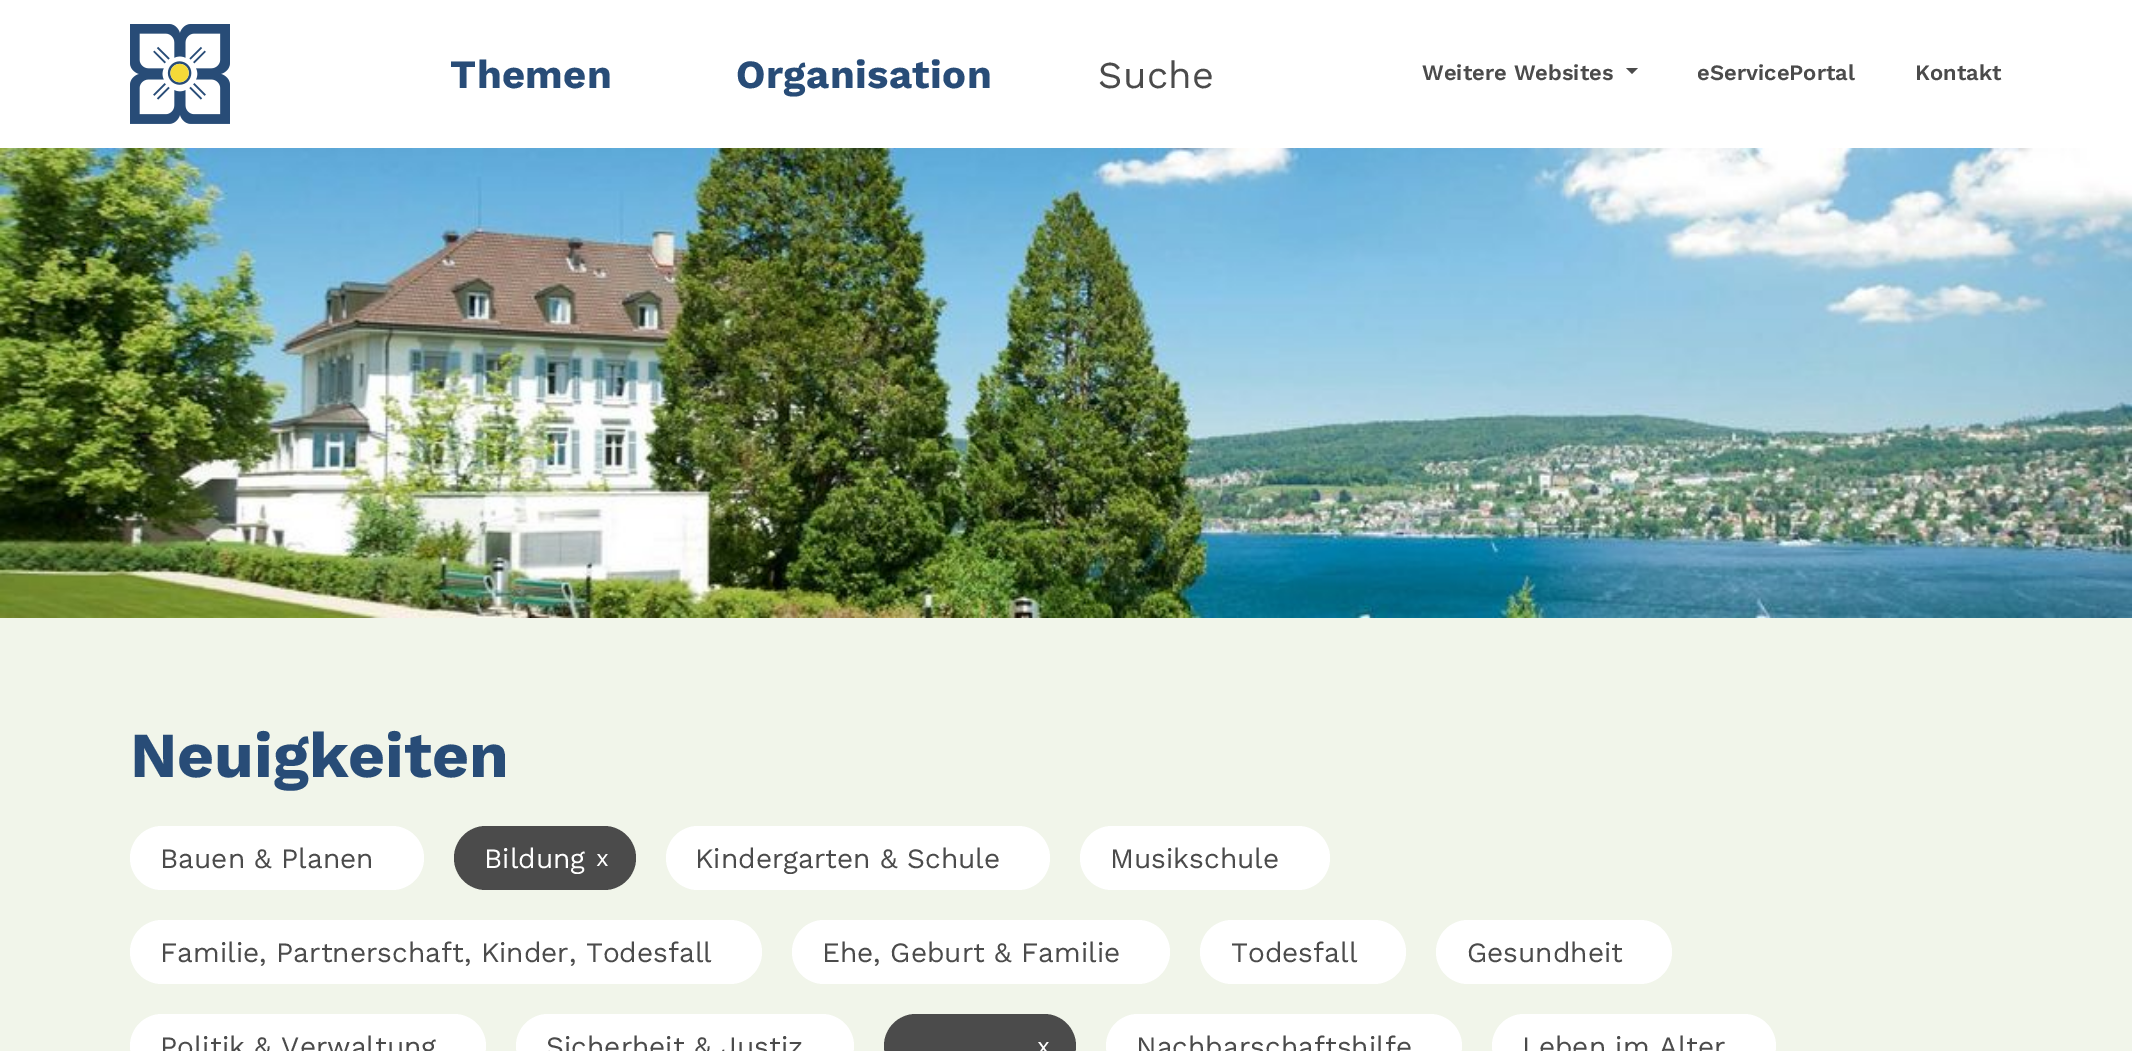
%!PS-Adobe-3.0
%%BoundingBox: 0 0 2132 1051
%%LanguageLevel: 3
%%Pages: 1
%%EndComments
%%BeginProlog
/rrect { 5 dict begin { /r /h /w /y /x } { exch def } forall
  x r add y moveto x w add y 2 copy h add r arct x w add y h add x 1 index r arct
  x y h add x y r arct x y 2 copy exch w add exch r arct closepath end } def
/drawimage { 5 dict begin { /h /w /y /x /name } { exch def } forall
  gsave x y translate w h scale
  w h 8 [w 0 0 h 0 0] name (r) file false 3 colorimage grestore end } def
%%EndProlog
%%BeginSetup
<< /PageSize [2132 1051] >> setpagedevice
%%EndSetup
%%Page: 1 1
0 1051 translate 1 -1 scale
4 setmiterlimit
1 setgray
0 0 2132 1051 rectfill
(images/1.raw) 130 24 100 100 drawimage
0.294 setgray
newpath 1626 68 moveto 1638 68 lineto 1632 74 lineto closepath fill
(images/2.raw) 0 148 2132 470 drawimage
0.945 0.961 0.918 setrgbcolor
0 618 2132 433 rectfill
1 setgray
130 826 294 64 32 rrect fill
0.294 setgray
454 826 182 64 32 rrect fill
1 setgray
666 826 384 64 32 rrect fill
1080 826 250 64 32 rrect fill
130 920 632 64 32 rrect fill
792 920 378 64 32 rrect fill
1200 920 206 64 32 rrect fill
1436 920 236 64 32 rrect fill
130 1014 356 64 32 rrect fill
516 1014 338 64 32 rrect fill
0.294 setgray
884 1014 192 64 32 rrect fill
1 setgray
1106 1014 356 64 32 rrect fill
1492 1014 284 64 32 rrect fill
/WorkSans-Bold [40 0 0 -40 0 0] selectfont
0.157 0.298 0.467 setrgbcolor
450 88 moveto 0.4 0 (Themen) ashow
736 88 moveto 0.4 0 (Organisation) ashow
/WorkSans-Regular [38 0 0 -38 0 0] selectfont
0.294 setgray
1098 88 moveto 0.4 0 (Suche) ashow
/WorkSans-SemiBold [22 0 0 -22 0 0] selectfont
1422 80 moveto (Weitere Websites) show
1697 80 moveto (eServicePortal) show
1915 80 moveto (Kontakt) show
/WorkSans-Bold [64 0 0 -64 0 0] selectfont
0.157 0.298 0.467 setrgbcolor
130 777 moveto (Neuigkeiten) show
/WorkSans-Regular [28 0 0 -28 0 0] selectfont
0.294 setgray
160 868 moveto (Bauen & Planen) show
1 setgray
484 868 moveto (Bildung) show
/WorkSans-Regular [24 0 0 -24 0 0] selectfont
596 866 moveto (x) show
/WorkSans-Regular [28 0 0 -28 0 0] selectfont
0.294 setgray
695 868 moveto (Kindergarten & Schule) show
1110 868 moveto (Musikschule) show
160 962 moveto (Familie, Partnerschaft, Kinder, Todesfall) show
822 962 moveto (Ehe, Geburt & Familie) show
1231 962 moveto (Todesfall) show
1467 962 moveto (Gesundheit) show
160 1056 moveto (Politik & Verwaltung) show
546 1056 moveto (Sicherheit & Justiz) show
/WorkSans-Regular [24 0 0 -24 0 0] selectfont
1 setgray
1037 1054 moveto (x) show
/WorkSans-Regular [28 0 0 -28 0 0] selectfont
0.294 setgray
1136 1056 moveto (Nachbarschaftshilfe) show
1522 1056 moveto (Leben im Alter) show
showpage
%%EOF
